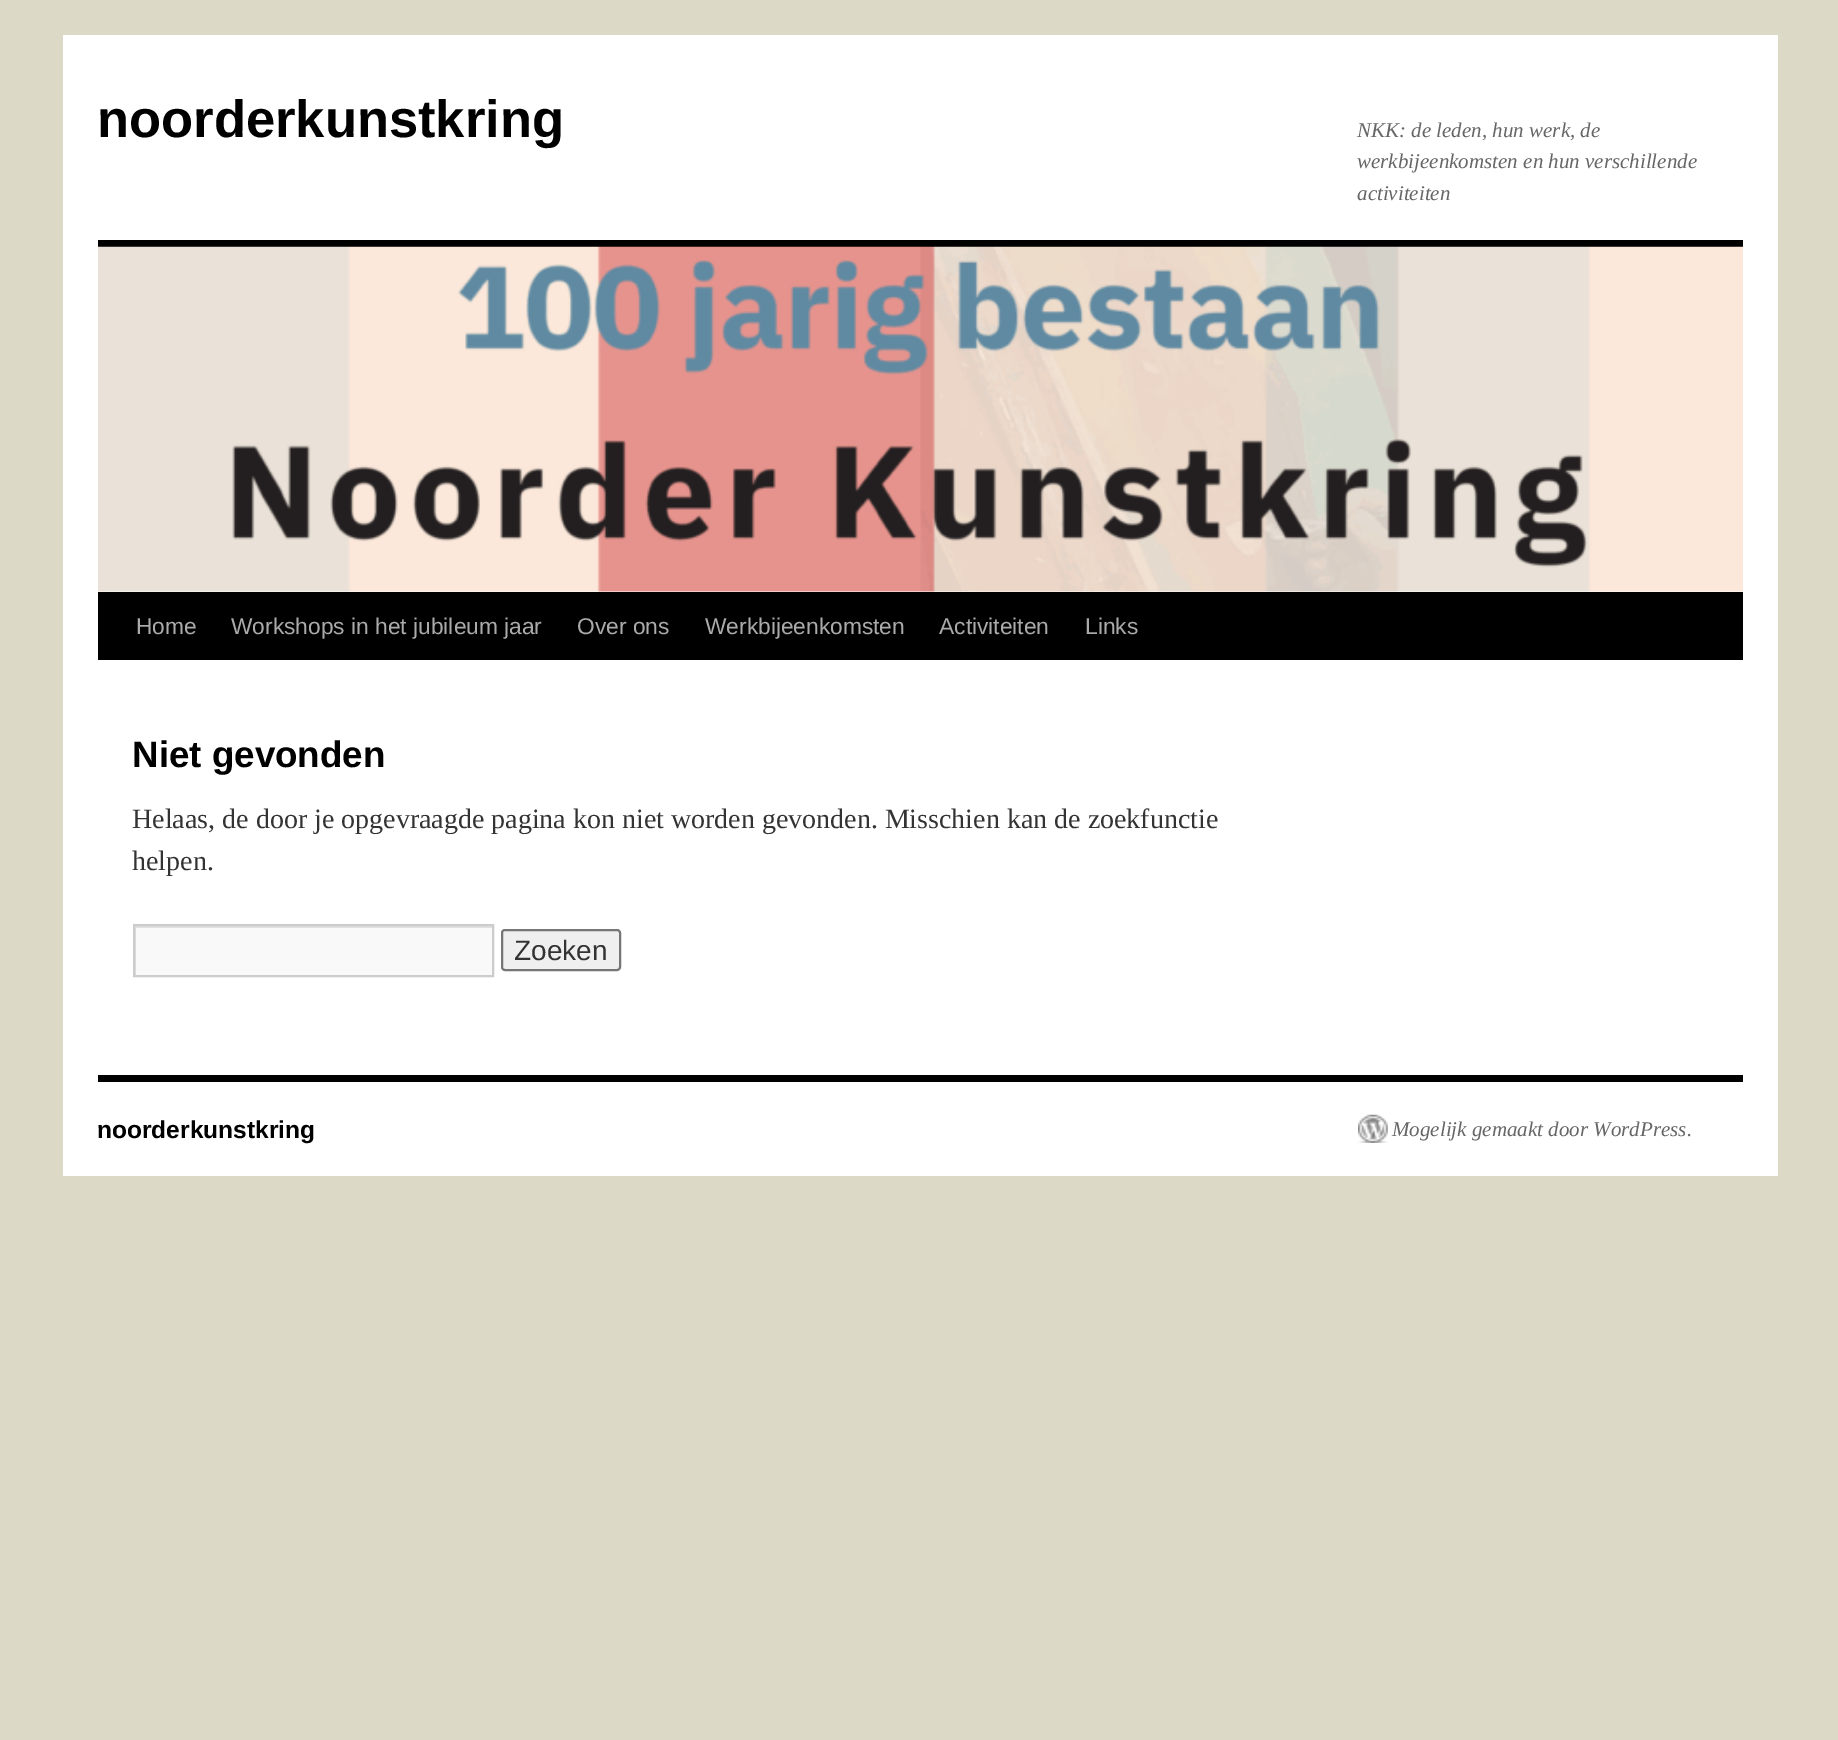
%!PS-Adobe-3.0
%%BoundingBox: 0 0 1838 1740
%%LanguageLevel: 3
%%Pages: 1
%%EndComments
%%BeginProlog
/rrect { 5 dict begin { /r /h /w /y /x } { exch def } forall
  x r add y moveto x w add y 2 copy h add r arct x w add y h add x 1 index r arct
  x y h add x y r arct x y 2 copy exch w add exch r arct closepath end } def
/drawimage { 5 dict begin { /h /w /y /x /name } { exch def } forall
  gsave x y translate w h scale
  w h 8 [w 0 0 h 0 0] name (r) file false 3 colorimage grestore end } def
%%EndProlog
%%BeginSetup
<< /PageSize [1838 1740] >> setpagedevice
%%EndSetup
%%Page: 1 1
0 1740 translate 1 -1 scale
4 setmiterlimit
0.867 0.851 0.78 setrgbcolor
0 0 1838 1740 rectfill
1 setgray
63 35 1715 1141 rectfill
0 setgray
98 240 1645 7 rectfill
98 592 1645 68 rectfill
(images/1.raw) 98 246 1645 346 drawimage
0.976 setgray
136 928 356 47 rectfill
gsave
135 926 357 49 rectclip
0.878 setgray
newpath -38 752 moveto 665 752 lineto 665 1148 lineto -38 1148 lineto closepath 136 928 moveto 494 928 lineto 494 976 lineto 136 976 lineto closepath eofill
grestore
0.8 setgray
2 setlinewidth
134 925 359 51 rectstroke
0.937 setgray
502 930 118 40 3 rrect gsave fill grestore
0.463 setgray
stroke
0 setgray
98 1075 1645 7 rectfill
(images/2.raw) 1358 1114 30 29 drawimage
/LiberationSans-Bold [52.5 0 0 -52.5 0 0] selectfont
97 137 moveto (noorderkunstkring) show
/LiberationSerif-Italic [21 0 0 -21 0 0] selectfont
0.4 setgray
1357 137 moveto (NKK: de leden, hun werk, de) show
1357 168 moveto (werkbijeenkomsten en hun verschillende) show
1357 200 moveto (activiteiten) show
/LiberationSans-Regular [22.75 0 0 -22.75 0 0] selectfont
0.667 setgray
136 634 moveto (Home) show
231 634 moveto (Workshops in het jubileum jaar) show
577 634 moveto (Over ons) show
705 634 moveto (Werkbijeenkomsten) show
939 634 moveto (Activiteiten) show
1085 634 moveto (Links) show
/LiberationSans-Bold [36.75 0 0 -36.75 0 0] selectfont
0 setgray
132 767 moveto (Niet gevonden) show
/LiberationSerif-Regular [28 0 0 -28 0 0] selectfont
0.2 setgray
132 828 moveto (Helaas, de door je opgevraagde pagina kon niet worden gevonden. Misschien kan de zoekfunctie) show
132 870 moveto (helpen.) show
/LiberationSans-Regular [28 0 0 -28 0 0] selectfont
514 960 moveto (Zoeken) show
/LiberationSans-Bold [24.5 0 0 -24.5 0 0] selectfont
0 setgray
97 1138 moveto (noorderkunstkring) show
/LiberationSerif-Italic [21 0 0 -21 0 0] selectfont
0.4 setgray
1392 1136 moveto (Mogelijk gemaakt door WordPress.) show
showpage
%%EOF
